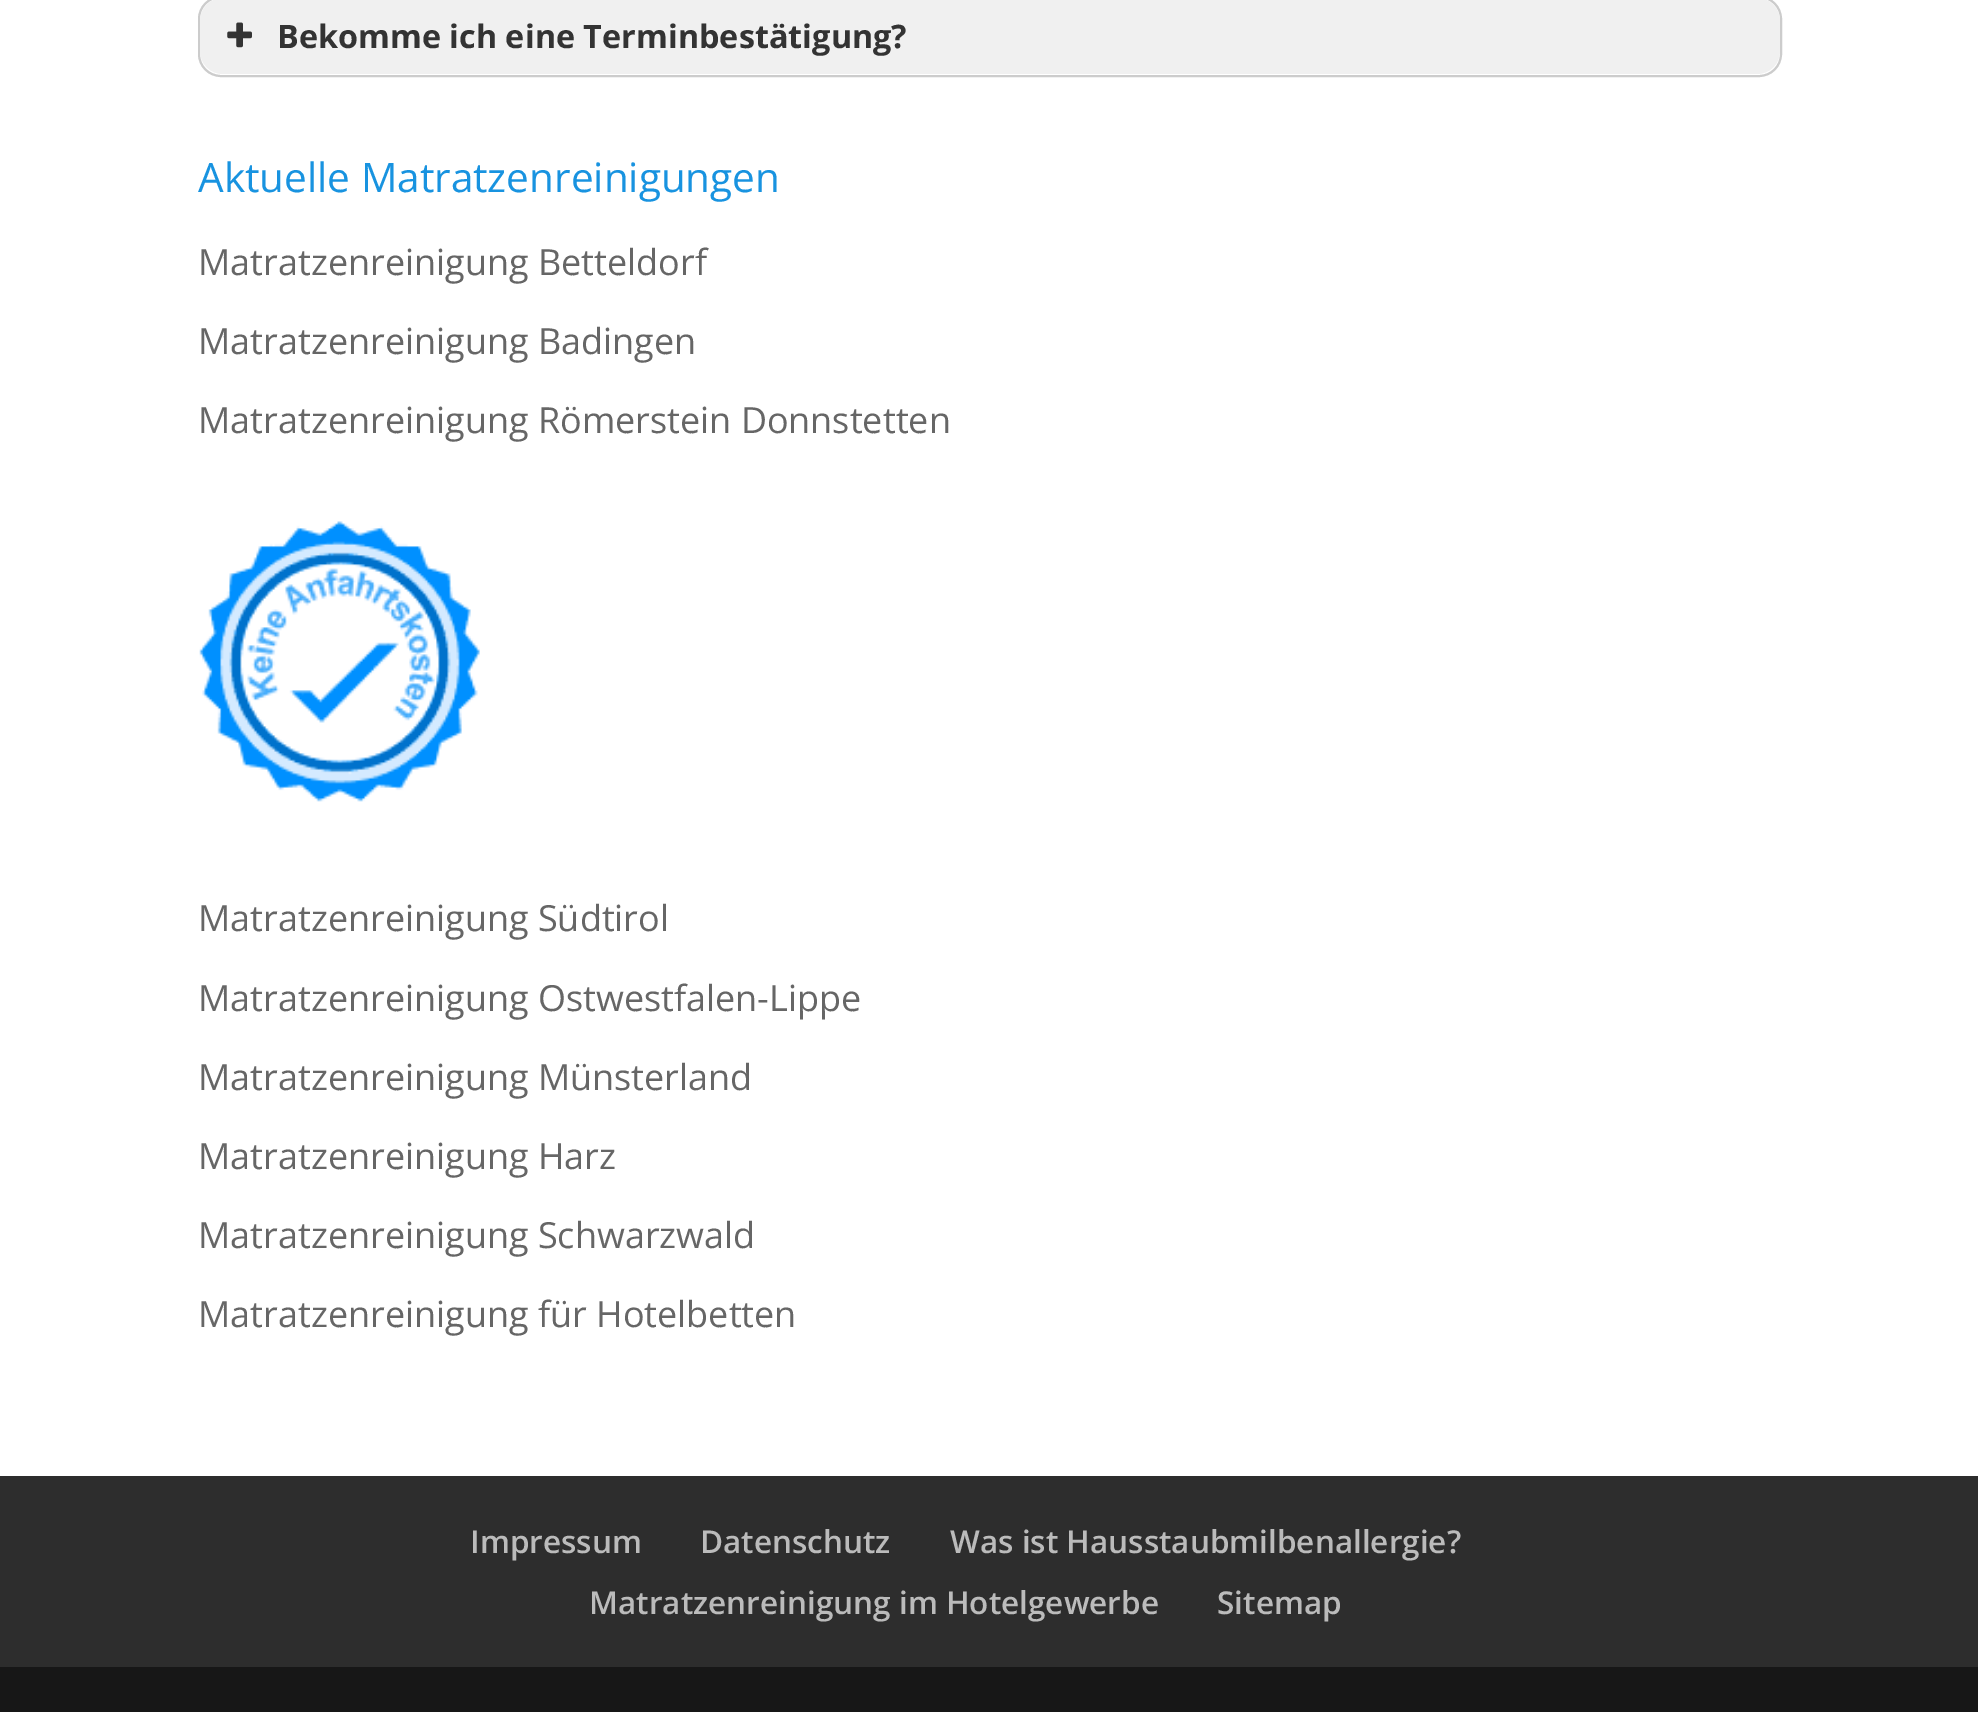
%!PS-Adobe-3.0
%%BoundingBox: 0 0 1978 1712
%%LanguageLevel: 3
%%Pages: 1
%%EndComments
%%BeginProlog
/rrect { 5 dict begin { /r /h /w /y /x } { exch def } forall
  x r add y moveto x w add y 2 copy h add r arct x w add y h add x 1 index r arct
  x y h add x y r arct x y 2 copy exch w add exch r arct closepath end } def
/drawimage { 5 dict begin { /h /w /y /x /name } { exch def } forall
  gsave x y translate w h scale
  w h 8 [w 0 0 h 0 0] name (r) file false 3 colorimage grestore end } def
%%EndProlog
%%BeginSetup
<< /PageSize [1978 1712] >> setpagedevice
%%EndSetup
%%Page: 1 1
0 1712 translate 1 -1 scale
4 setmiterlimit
1 setgray
0 0 1978 1712 rectfill
0.8 setgray
2 setlinewidth
199 -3 1582 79 22 rrect stroke
0.941 setgray
200 -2 1580 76 23 rrect fill
(images/1.raw) 227 22 25 26 drawimage
(images/2.raw) 199 521 281 281 drawimage
0.176 setgray
0 1476 1978 191 rectfill
0.09 setgray
0 1667 1978 45 rectfill
/OpenSans-Bold [32.4 0 0 -32.4 0 0] selectfont
0.2 setgray
277 48 moveto (Bekomme ich eine Terminbestätigung?) show
/OpenSans-Regular [40.5 0 0 -40.5 0 0] selectfont
0.094 0.576 0.878 setrgbcolor
198 192 moveto (Aktuelle Matratzenreinigungen) show
/OpenSans-Regular [36 0 0 -36 0 0] selectfont
0.4 setgray
198 275 moveto (Matratzenreinigung Betteldorf) show
198 354 moveto (Matratzenreinigung Badingen) show
198 433 moveto (Matratzenreinigung Römerstein Donnstetten) show
198 931 moveto (Matratzenreinigung Südtirol) show
198 1011 moveto (Matratzenreinigung Ostwestfalen-Lippe) show
198 1090 moveto (Matratzenreinigung Münsterland) show
198 1169 moveto (Matratzenreinigung Harz) show
198 1248 moveto (Matratzenreinigung Schwarzwald) show
198 1327 moveto (Matratzenreinigung für Hotelbetten) show
/OpenSans-SemiBold [31.5 0 0 -31.5 0 0] selectfont
0.733 setgray
470 1553 moveto (Impressum) show
700 1553 moveto (Datenschutz) show
950 1553 moveto (Was ist Hausstaubmilbenallergie?) show
589 1614 moveto (Matratzenreinigung im Hotelgewerbe) show
1217 1614 moveto (Sitemap) show
showpage
%%EOF
